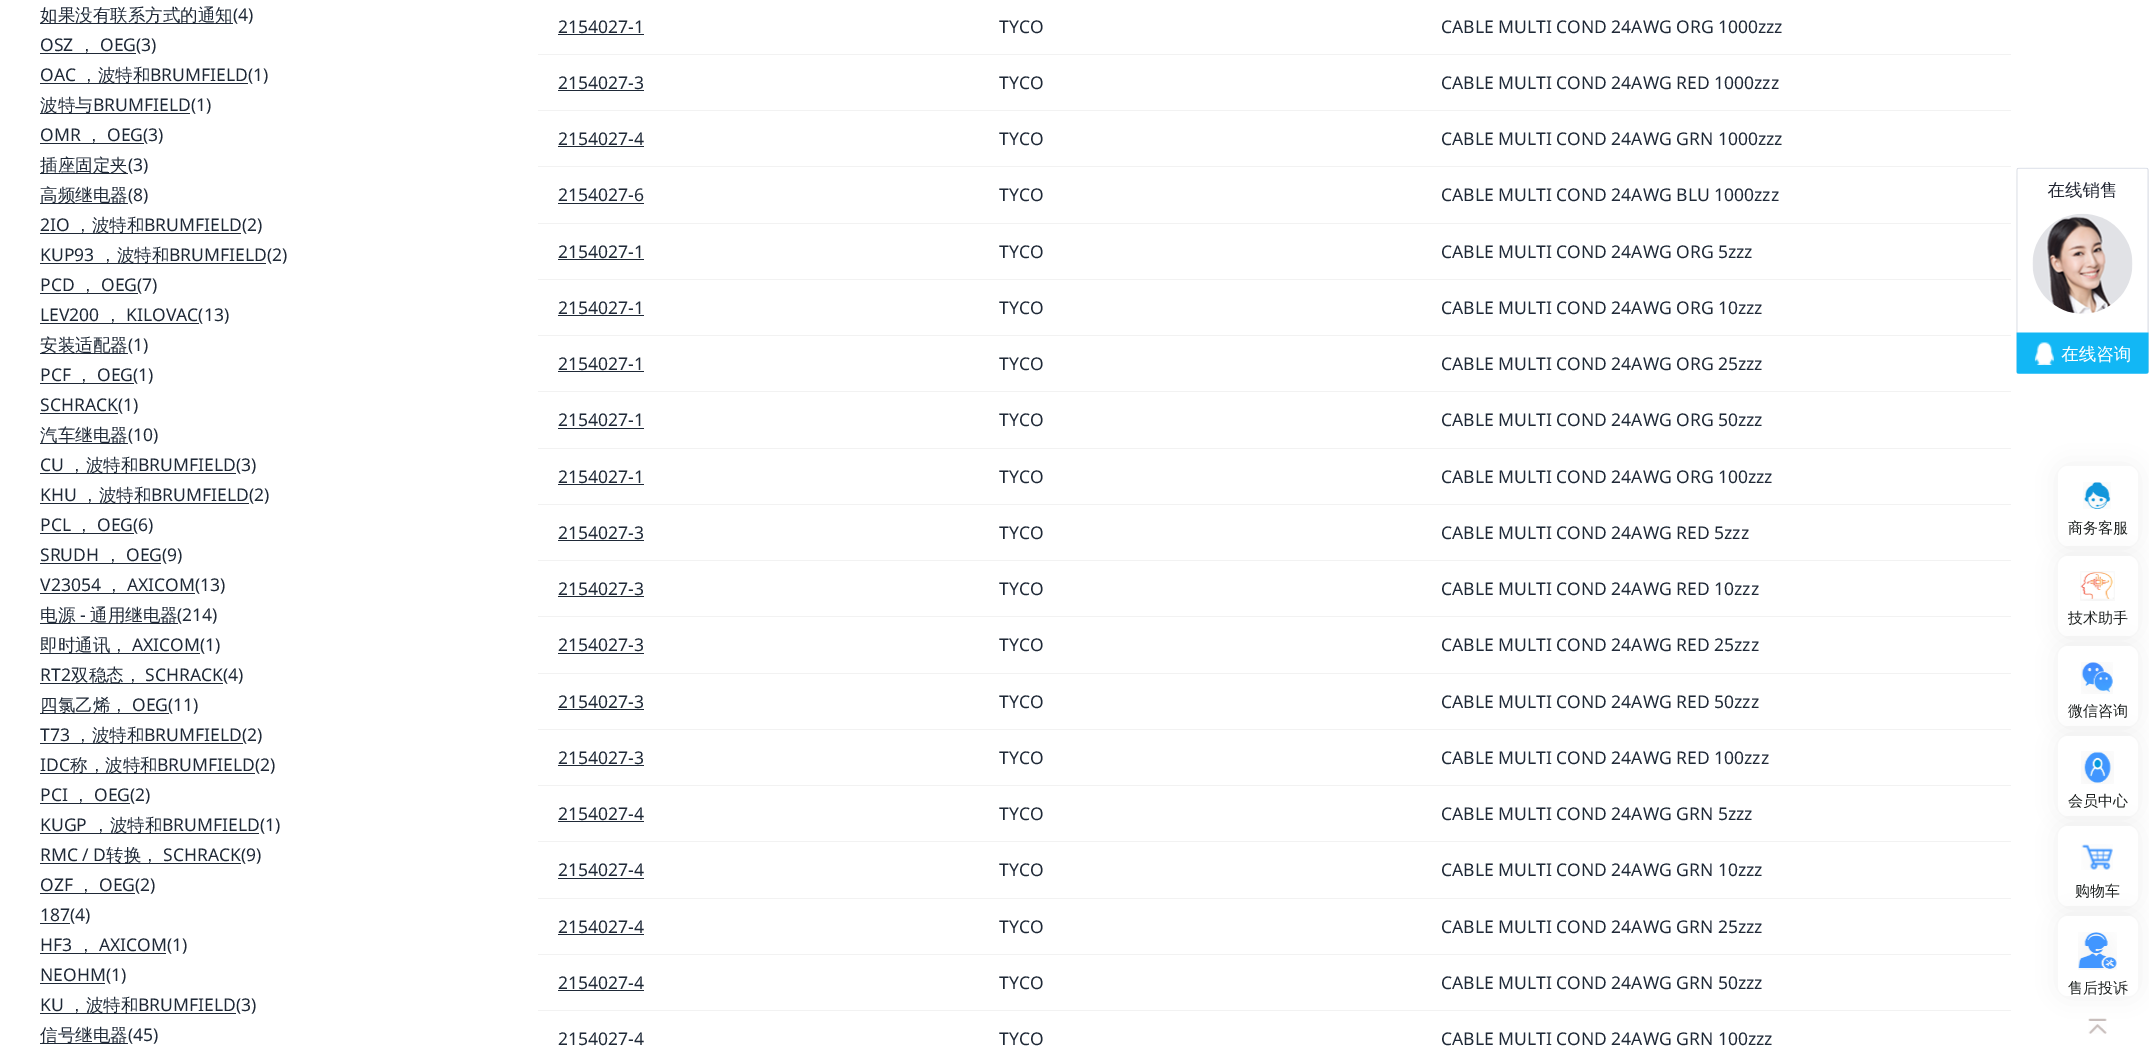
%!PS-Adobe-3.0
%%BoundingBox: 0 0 2149 1046
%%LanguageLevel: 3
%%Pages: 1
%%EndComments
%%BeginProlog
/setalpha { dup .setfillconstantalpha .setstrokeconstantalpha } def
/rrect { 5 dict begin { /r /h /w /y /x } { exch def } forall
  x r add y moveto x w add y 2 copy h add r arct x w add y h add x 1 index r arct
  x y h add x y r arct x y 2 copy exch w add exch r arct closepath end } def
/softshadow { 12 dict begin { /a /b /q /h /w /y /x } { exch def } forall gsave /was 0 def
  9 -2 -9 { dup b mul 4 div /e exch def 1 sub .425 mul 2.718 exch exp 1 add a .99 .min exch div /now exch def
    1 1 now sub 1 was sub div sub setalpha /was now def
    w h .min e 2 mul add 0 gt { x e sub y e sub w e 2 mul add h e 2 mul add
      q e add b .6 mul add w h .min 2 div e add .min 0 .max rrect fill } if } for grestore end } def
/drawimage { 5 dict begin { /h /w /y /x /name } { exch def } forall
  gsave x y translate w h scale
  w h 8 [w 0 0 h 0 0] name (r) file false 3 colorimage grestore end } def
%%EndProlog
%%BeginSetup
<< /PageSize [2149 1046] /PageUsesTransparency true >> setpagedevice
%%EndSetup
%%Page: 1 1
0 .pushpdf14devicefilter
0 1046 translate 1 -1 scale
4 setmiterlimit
1 setgray
0 0 2149 1046 rectfill
0.122 0.161 0.216 setrgbcolor
40 23 193 1 rectfill
40 53 96 1 rectfill
40 83 208 1 rectfill
40 113 150 1 rectfill
40 143 104 1 rectfill
40 173 88 1 rectfill
40 203 88 1 rectfill
40 233 201 1 rectfill
40 263 226 1 rectfill
40 293 98 1 rectfill
40 323 159 1 rectfill
40 353 88 1 rectfill
40 383 94 1 rectfill
40 413 78 1 rectfill
40 443 88 1 rectfill
40 473 196 1 rectfill
40 503 209 1 rectfill
40 533 94 1 rectfill
40 563 121 1 rectfill
40 593 155 1 rectfill
40 623 138 1 rectfill
40 653 160 1 rectfill
40 683 183 1 rectfill
40 713 129 1 rectfill
40 743 203 1 rectfill
40 773 215 1 rectfill
40 803 90 1 rectfill
40 833 219 1 rectfill
40 863 201 1 rectfill
40 893 95 1 rectfill
40 923 30 1 rectfill
40 953 126 1 rectfill
40 983 65 1 rectfill
40 1013 196 1 rectfill
40 1043 88 1 rectfill
0.949 setgray
538 54 1473 1 rectfill
0.122 0.161 0.216 setrgbcolor
558 34 86 1 rectfill
0.949 setgray
538 110 1473 1 rectfill
0.122 0.161 0.216 setrgbcolor
558 90 86 1 rectfill
0.949 setgray
538 166 1473 1 rectfill
0.122 0.161 0.216 setrgbcolor
558 146 86 1 rectfill
0.949 setgray
538 223 1473 1 rectfill
0.122 0.161 0.216 setrgbcolor
558 203 86 1 rectfill
0.949 setgray
538 279 1473 1 rectfill
0.122 0.161 0.216 setrgbcolor
558 259 86 1 rectfill
0.949 setgray
538 335 1473 1 rectfill
0.122 0.161 0.216 setrgbcolor
558 315 86 1 rectfill
0.949 setgray
538 391 1473 1 rectfill
0.122 0.161 0.216 setrgbcolor
558 371 86 1 rectfill
0.949 setgray
538 448 1473 1 rectfill
0.122 0.161 0.216 setrgbcolor
558 428 86 1 rectfill
0.949 setgray
538 504 1473 1 rectfill
0.122 0.161 0.216 setrgbcolor
558 484 86 1 rectfill
0.949 setgray
538 560 1473 1 rectfill
0.122 0.161 0.216 setrgbcolor
558 540 86 1 rectfill
0.949 setgray
538 616 1473 1 rectfill
0.122 0.161 0.216 setrgbcolor
558 596 86 1 rectfill
0.949 setgray
538 673 1473 1 rectfill
0.122 0.161 0.216 setrgbcolor
558 653 86 1 rectfill
0.949 setgray
538 729 1473 1 rectfill
0.122 0.161 0.216 setrgbcolor
558 709 86 1 rectfill
0.949 setgray
538 785 1473 1 rectfill
0.122 0.161 0.216 setrgbcolor
558 765 86 1 rectfill
0.949 setgray
538 841 1473 1 rectfill
0.122 0.161 0.216 setrgbcolor
558 821 86 1 rectfill
0.949 setgray
538 898 1473 1 rectfill
0.122 0.161 0.216 setrgbcolor
558 878 86 1 rectfill
0.949 setgray
538 954 1473 1 rectfill
0.122 0.161 0.216 setrgbcolor
558 934 86 1 rectfill
0.949 setgray
538 1010 1473 1 rectfill
0.122 0.161 0.216 setrgbcolor
558 990 86 1 rectfill
(images/1.raw) 2016 167 133 207 drawimage
0 setgray
2063 471 70 70 5 12.5 0.08 softshadow
1 setgray
2058 466 80 80 10 rrect fill
(images/2.raw) 2083 482 28 27 drawimage
0 setgray
2063 561 70 70 5 12.5 0.08 softshadow
1 setgray
2058 556 80 80 10 rrect fill
(images/3.raw) 2080 571 35 30 drawimage
0 setgray
2063 651 70 70 5 12.5 0.08 softshadow
1 setgray
2058 646 80 80 10 rrect fill
(images/4.raw) 2081 662 32 32 drawimage
0 setgray
2063 741 70 70 5 12.5 0.08 softshadow
1 setgray
2058 736 80 80 10 rrect fill
(images/5.raw) 2081 751 33 33 drawimage
0 setgray
2063 831 70 70 5 12.5 0.08 softshadow
1 setgray
2058 826 80 80 10 rrect fill
(images/6.raw) 2081 844 32 26 drawimage
0 setgray
2063 921 70 70 5 12.5 0.08 softshadow
1 setgray
2058 916 80 80 10 rrect fill
(images/7.raw) 2078 932 39 38 drawimage
(images/8.raw) 2088 1018 19 16 drawimage
/WenQuanYiZenHei-Medium [17.5 0 0 -17.5 0 0] selectfont
0.122 0.161 0.216 setrgbcolor
40 21 moveto (如果没有联系方式的通知) show
/NotoSans-Regular [17.5 0 0 -17.5 0 0] selectfont
233 21 moveto (\(4\)) show
40 51 moveto (OSZ) show
/WenQuanYiZenHei-Medium [17.5 0 0 -17.5 0 0] selectfont
78 51 moveto (，) show
/NotoSans-Regular [17.5 0 0 -17.5 0 0] selectfont
100 51 moveto (OEG\(3\)) show
40 81 moveto (OAC) show
/WenQuanYiZenHei-Medium [17.5 0 0 -17.5 0 0] selectfont
80 81 moveto (，波特和) show
/NotoSans-Regular [17.5 0 0 -17.5 0 0] selectfont
150 81 moveto (BRUMFIELD\(1\)) show
/WenQuanYiZenHei-Medium [17.5 0 0 -17.5 0 0] selectfont
40 111 moveto (波特与) show
/NotoSans-Regular [17.5 0 0 -17.5 0 0] selectfont
93 111 moveto (BRUMFIELD\(1\)) show
40 141 moveto (OMR) show
/WenQuanYiZenHei-Medium [17.5 0 0 -17.5 0 0] selectfont
85 141 moveto (，) show
/NotoSans-Regular [17.5 0 0 -17.5 0 0] selectfont
107 141 moveto (OEG\(3\)) show
/WenQuanYiZenHei-Medium [17.5 0 0 -17.5 0 0] selectfont
40 171 moveto (插座固定夹) show
/NotoSans-Regular [17.5 0 0 -17.5 0 0] selectfont
128 171 moveto (\(3\)) show
/WenQuanYiZenHei-Medium [17.5 0 0 -17.5 0 0] selectfont
40 201 moveto (高频继电器) show
/NotoSans-Regular [17.5 0 0 -17.5 0 0] selectfont
128 201 moveto (\(8\)) show
40 231 moveto (2IO) show
/WenQuanYiZenHei-Medium [17.5 0 0 -17.5 0 0] selectfont
74 231 moveto (，波特和) show
/NotoSans-Regular [17.5 0 0 -17.5 0 0] selectfont
144 231 moveto (BRUMFIELD\(2\)) show
40 261 moveto (KUP93) show
/WenQuanYiZenHei-Medium [17.5 0 0 -17.5 0 0] selectfont
99 261 moveto (，波特和) show
/NotoSans-Regular [17.5 0 0 -17.5 0 0] selectfont
169 261 moveto (BRUMFIELD\(2\)) show
40 291 moveto (PCD) show
/WenQuanYiZenHei-Medium [17.5 0 0 -17.5 0 0] selectfont
79 291 moveto (，) show
/NotoSans-Regular [17.5 0 0 -17.5 0 0] selectfont
101 291 moveto (OEG\(7\)) show
40 321 moveto (LEV200) show
/WenQuanYiZenHei-Medium [17.5 0 0 -17.5 0 0] selectfont
104 321 moveto (，) show
/NotoSans-Regular [17.5 0 0 -17.5 0 0] selectfont
126 321 moveto (KILOVAC\(13\)) show
/WenQuanYiZenHei-Medium [17.5 0 0 -17.5 0 0] selectfont
40 351 moveto (安装适配器) show
/NotoSans-Regular [17.5 0 0 -17.5 0 0] selectfont
128 351 moveto (\(1\)) show
40 381 moveto (PCF) show
/WenQuanYiZenHei-Medium [17.5 0 0 -17.5 0 0] selectfont
75 381 moveto (，) show
/NotoSans-Regular [17.5 0 0 -17.5 0 0] selectfont
97 381 moveto (OEG\(1\)) show
40 411 moveto (SCHRACK\(1\)) show
/WenQuanYiZenHei-Medium [17.5 0 0 -17.5 0 0] selectfont
40 441 moveto (汽车继电器) show
/NotoSans-Regular [17.5 0 0 -17.5 0 0] selectfont
128 441 moveto (\(10\)) show
40 471 moveto (CU) show
/WenQuanYiZenHei-Medium [17.5 0 0 -17.5 0 0] selectfont
68 471 moveto (，波特和) show
/NotoSans-Regular [17.5 0 0 -17.5 0 0] selectfont
138 471 moveto (BRUMFIELD\(3\)) show
40 501 moveto (KHU) show
/WenQuanYiZenHei-Medium [17.5 0 0 -17.5 0 0] selectfont
81 501 moveto (，波特和) show
/NotoSans-Regular [17.5 0 0 -17.5 0 0] selectfont
151 501 moveto (BRUMFIELD\(2\)) show
40 531 moveto (PCL) show
/WenQuanYiZenHei-Medium [17.5 0 0 -17.5 0 0] selectfont
75 531 moveto (，) show
/NotoSans-Regular [17.5 0 0 -17.5 0 0] selectfont
97 531 moveto (OEG\(6\)) show
40 561 moveto (SRUDH) show
/WenQuanYiZenHei-Medium [17.5 0 0 -17.5 0 0] selectfont
104 561 moveto (，) show
/NotoSans-Regular [17.5 0 0 -17.5 0 0] selectfont
126 561 moveto (OEG\(9\)) show
40 591 moveto (V23054) show
/WenQuanYiZenHei-Medium [17.5 0 0 -17.5 0 0] selectfont
105 591 moveto (，) show
/NotoSans-Regular [17.5 0 0 -17.5 0 0] selectfont
127 591 moveto (AXICOM\(13\)) show
/WenQuanYiZenHei-Medium [17.5 0 0 -17.5 0 0] selectfont
40 621 moveto (电源) show
/NotoSans-Regular [17.5 0 0 -17.5 0 0] selectfont
80 621 moveto (-) show
/WenQuanYiZenHei-Medium [17.5 0 0 -17.5 0 0] selectfont
90 621 moveto (通用继电器) show
/NotoSans-Regular [17.5 0 0 -17.5 0 0] selectfont
177 621 moveto (\(214\)) show
/WenQuanYiZenHei-Medium [17.5 0 0 -17.5 0 0] selectfont
40 651 moveto (即时通讯，) show
/NotoSans-Regular [17.5 0 0 -17.5 0 0] selectfont
132 651 moveto (AXICOM\(1\)) show
40 681 moveto (RT2) show
/WenQuanYiZenHei-Medium [17.5 0 0 -17.5 0 0] selectfont
71 681 moveto (双稳态，) show
/NotoSans-Regular [17.5 0 0 -17.5 0 0] selectfont
145 681 moveto (SCHRACK\(4\)) show
/WenQuanYiZenHei-Medium [17.5 0 0 -17.5 0 0] selectfont
40 711 moveto (四氯乙烯，) show
/NotoSans-Regular [17.5 0 0 -17.5 0 0] selectfont
132 711 moveto (OEG\(11\)) show
40 741 moveto (T73) show
/WenQuanYiZenHei-Medium [17.5 0 0 -17.5 0 0] selectfont
74 741 moveto (，波特和) show
/NotoSans-Regular [17.5 0 0 -17.5 0 0] selectfont
144 741 moveto (BRUMFIELD\(2\)) show
40 771 moveto (IDC) show
/WenQuanYiZenHei-Medium [17.5 0 0 -17.5 0 0] selectfont
70 771 moveto (称，波特和) show
/NotoSans-Regular [17.5 0 0 -17.5 0 0] selectfont
157 771 moveto (BRUMFIELD\(2\)) show
40 801 moveto (PCI) show
/WenQuanYiZenHei-Medium [17.5 0 0 -17.5 0 0] selectfont
72 801 moveto (，) show
/NotoSans-Regular [17.5 0 0 -17.5 0 0] selectfont
94 801 moveto (OEG\(2\)) show
40 831 moveto (KUGP) show
/WenQuanYiZenHei-Medium [17.5 0 0 -17.5 0 0] selectfont
92 831 moveto (，波特和) show
/NotoSans-Regular [17.5 0 0 -17.5 0 0] selectfont
162 831 moveto (BRUMFIELD\(1\)) show
40 861 moveto (RMC / D) show
/WenQuanYiZenHei-Medium [17.5 0 0 -17.5 0 0] selectfont
106 861 moveto (转换，) show
/NotoSans-Regular [17.5 0 0 -17.5 0 0] selectfont
163 861 moveto (SCHRACK\(9\)) show
40 891 moveto (OZF) show
/WenQuanYiZenHei-Medium [17.5 0 0 -17.5 0 0] selectfont
77 891 moveto (，) show
/NotoSans-Regular [17.5 0 0 -17.5 0 0] selectfont
99 891 moveto (OEG\(2\)) show
40 921 moveto (187\(4\)) show
40 951 moveto (HF3) show
/WenQuanYiZenHei-Medium [17.5 0 0 -17.5 0 0] selectfont
77 951 moveto (，) show
/NotoSans-Regular [17.5 0 0 -17.5 0 0] selectfont
99 951 moveto (AXICOM\(1\)) show
40 981 moveto (NEOHM\(1\)) show
40 1011 moveto (KU) show
/WenQuanYiZenHei-Medium [17.5 0 0 -17.5 0 0] selectfont
68 1011 moveto (，波特和) show
/NotoSans-Regular [17.5 0 0 -17.5 0 0] selectfont
138 1011 moveto (BRUMFIELD\(3\)) show
/WenQuanYiZenHei-Medium [17.5 0 0 -17.5 0 0] selectfont
40 1041 moveto (信号继电器) show
/NotoSans-Regular [17.5 0 0 -17.5 0 0] selectfont
128 1041 moveto (\(45\)) show
558 33 moveto (2154027-1) show
999 33 moveto (TYCO) show
1441 33 moveto (CABLE MULTI COND 24AWG ORG 1000zzz) show
558 89 moveto (2154027-3) show
999 89 moveto (TYCO) show
1441 89 moveto (CABLE MULTI COND 24AWG RED 1000zzz) show
558 145 moveto (2154027-4) show
999 145 moveto (TYCO) show
1441 145 moveto (CABLE MULTI COND 24AWG GRN 1000zzz) show
558 201 moveto (2154027-6) show
999 201 moveto (TYCO) show
1441 201 moveto (CABLE MULTI COND 24AWG BLU 1000zzz) show
558 258 moveto (2154027-1) show
999 258 moveto (TYCO) show
1441 258 moveto (CABLE MULTI COND 24AWG ORG 5zzz) show
558 314 moveto (2154027-1) show
999 314 moveto (TYCO) show
1441 314 moveto (CABLE MULTI COND 24AWG ORG 10zzz) show
558 370 moveto (2154027-1) show
999 370 moveto (TYCO) show
1441 370 moveto (CABLE MULTI COND 24AWG ORG 25zzz) show
558 426 moveto (2154027-1) show
999 426 moveto (TYCO) show
1441 426 moveto (CABLE MULTI COND 24AWG ORG 50zzz) show
558 483 moveto (2154027-1) show
999 483 moveto (TYCO) show
1441 483 moveto (CABLE MULTI COND 24AWG ORG 100zzz) show
558 539 moveto (2154027-3) show
999 539 moveto (TYCO) show
1441 539 moveto (CABLE MULTI COND 24AWG RED 5zzz) show
558 595 moveto (2154027-3) show
999 595 moveto (TYCO) show
1441 595 moveto (CABLE MULTI COND 24AWG RED 10zzz) show
558 651 moveto (2154027-3) show
999 651 moveto (TYCO) show
1441 651 moveto (CABLE MULTI COND 24AWG RED 25zzz) show
558 708 moveto (2154027-3) show
999 708 moveto (TYCO) show
1441 708 moveto (CABLE MULTI COND 24AWG RED 50zzz) show
558 764 moveto (2154027-3) show
999 764 moveto (TYCO) show
1441 764 moveto (CABLE MULTI COND 24AWG RED 100zzz) show
558 820 moveto (2154027-4) show
999 820 moveto (TYCO) show
1441 820 moveto (CABLE MULTI COND 24AWG GRN 5zzz) show
558 876 moveto (2154027-4) show
999 876 moveto (TYCO) show
1441 876 moveto (CABLE MULTI COND 24AWG GRN 10zzz) show
558 933 moveto (2154027-4) show
999 933 moveto (TYCO) show
1441 933 moveto (CABLE MULTI COND 24AWG GRN 25zzz) show
558 989 moveto (2154027-4) show
999 989 moveto (TYCO) show
1441 989 moveto (CABLE MULTI COND 24AWG GRN 50zzz) show
558 1045 moveto (2154027-4) show
999 1045 moveto (TYCO) show
1441 1045 moveto (CABLE MULTI COND 24AWG GRN 100zzz) show
/WenQuanYiZenHei-Medium [15 0 0 -15 0 0] selectfont
0.118 0.133 0.129 setrgbcolor
2068 533 moveto (商务客服) show
2068 623 moveto (技术助手) show
2068 716 moveto (微信咨询) show
2068 806 moveto (会员中心) show
2075 896 moveto (购物车) show
2068 993 moveto (售后投诉) show
.poppdf14devicefilter showpage
%%EOF
